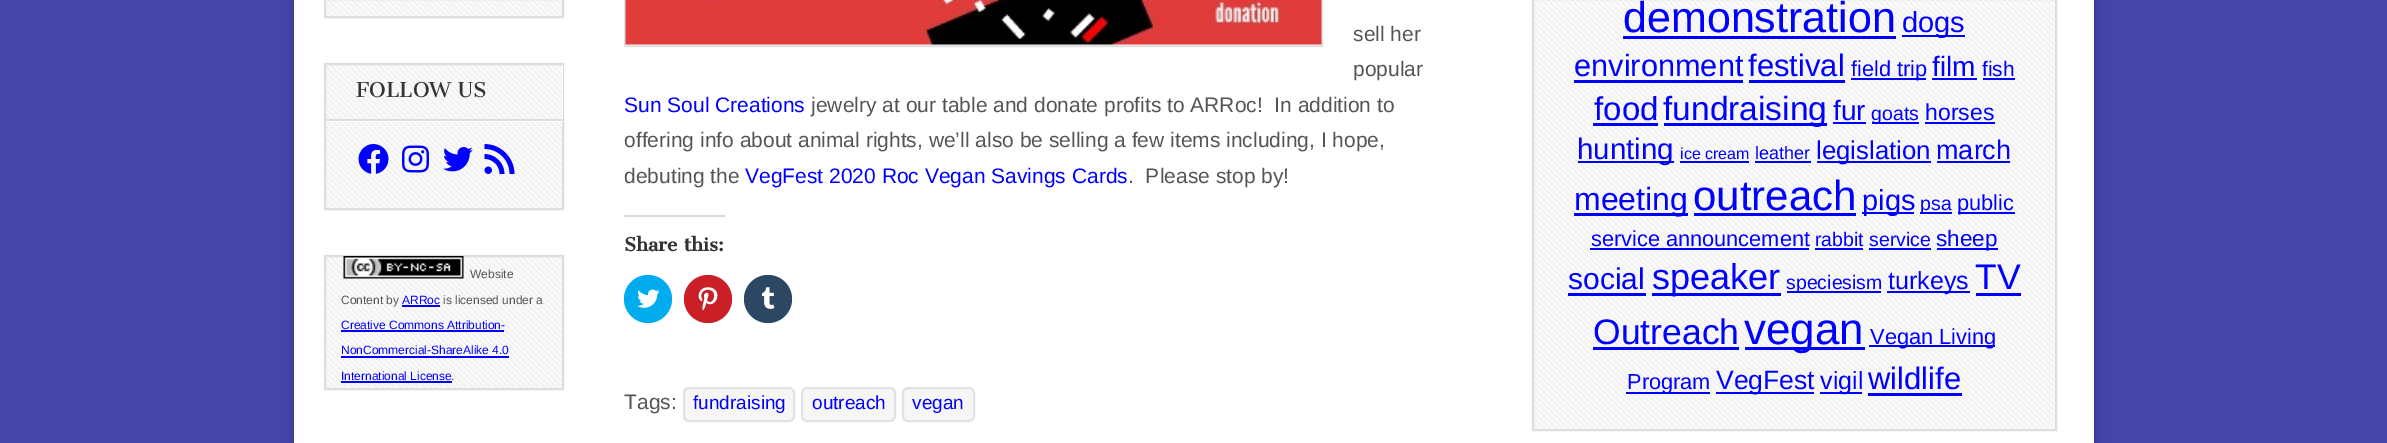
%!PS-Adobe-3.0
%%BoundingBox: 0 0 2387 443
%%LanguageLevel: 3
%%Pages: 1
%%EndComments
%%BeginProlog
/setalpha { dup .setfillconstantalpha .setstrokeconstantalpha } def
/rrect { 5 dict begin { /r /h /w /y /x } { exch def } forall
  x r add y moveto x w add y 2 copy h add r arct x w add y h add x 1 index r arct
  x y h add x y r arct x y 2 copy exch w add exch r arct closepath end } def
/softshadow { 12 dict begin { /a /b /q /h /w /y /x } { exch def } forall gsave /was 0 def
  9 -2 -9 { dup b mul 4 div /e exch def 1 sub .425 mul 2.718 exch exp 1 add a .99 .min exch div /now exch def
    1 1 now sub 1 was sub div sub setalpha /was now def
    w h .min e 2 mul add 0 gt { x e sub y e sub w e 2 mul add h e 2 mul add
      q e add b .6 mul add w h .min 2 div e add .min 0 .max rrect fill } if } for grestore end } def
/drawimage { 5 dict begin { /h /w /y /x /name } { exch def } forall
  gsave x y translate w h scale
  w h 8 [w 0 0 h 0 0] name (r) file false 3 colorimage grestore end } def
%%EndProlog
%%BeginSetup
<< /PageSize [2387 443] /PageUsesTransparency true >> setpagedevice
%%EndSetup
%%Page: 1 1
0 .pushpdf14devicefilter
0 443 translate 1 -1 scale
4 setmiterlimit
0.275 0.275 0.667 setrgbcolor
0 0 2387 443 rectfill
0 setgray
294 -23 1800 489 0 7.5 0.2 softshadow
1 setgray
294 0 1800 443 rectfill
(images/1.raw) 326 0 236 16 drawimage
0.867 setgray
2 setlinewidth
325 -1 238 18 rectstroke
(images/2.raw) 324 62 240 146 drawimage
325 64 238 145 rectstroke
1 setgray
newpath 326 120 moveto 326 122 lineto 563 122 lineto 563 66 lineto 562 66 lineto 562 120 lineto closepath fill
0.867 setgray
326 119 237 2 rectfill
(images/3.raw) 358 144 31 30 drawimage
(images/4.raw) 402 145 27 28 drawimage
(images/5.raw) 443 147 30 25 drawimage
(images/6.raw) 484 144 31 30 drawimage
(images/7.raw) 324 254 240 134 drawimage
325 256 238 133 rectstroke
(images/8.raw) 343 256 121 23 drawimage
0 0 1 setrgbcolor
402 305 38 2 rectfill
341 330 163 2 rectfill
341 356 168 2 rectfill
341 381 111 2 rectfill
0.886 setgray
625 -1 697 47 rectstroke
(images/9.raw) 625 0 697 45 drawimage
0.863 0.863 0.871 setrgbcolor
624 215 101 2 rectfill
0 0.675 0.933 setrgbcolor
newpath 648 299 24 0 360 arc closepath fill
(images/10.raw) 637 289 23 19 drawimage
0.792 0.122 0.153 setrgbcolor
newpath 708 299 24 0 360 arc closepath fill
(images/11.raw) 698 287 20 24 drawimage
0.173 0.278 0.384 setrgbcolor
newpath 768 299 24 0 360 arc closepath fill
(images/12.raw) 761 287 14 22 drawimage
0.965 setgray
684 388 110 33 5 rrect gsave fill grestore
0.886 setgray
stroke
0.965 setgray
802 388 93 33 5 rrect gsave fill grestore
0.886 setgray
stroke
0.965 setgray
903 388 71 33 5 rrect gsave fill grestore
0.886 setgray
stroke
(images/13.raw) 1531 0 524 430 drawimage
0.867 setgray
1533 -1 523 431 rectstroke
0 0 1 setrgbcolor
1623 36 273 3 rectfill
1902 35 63 2 rectfill
1574 80 169 3 rectfill
1749 80 96 3 rectfill
1851 78 75 2 rectfill
1932 78 45 2 rectfill
1983 78 32 2 rectfill
1593 123 65 3 rectfill
1664 123 163 3 rectfill
1833 122 33 2 rectfill
1872 122 47 2 rectfill
1925 122 70 2 rectfill
1578 161 96 2 rectfill
1680 161 69 2 rectfill
1755 161 56 2 rectfill
1817 161 114 2 rectfill
1937 161 73 2 rectfill
1574 213 114 3 rectfill
1694 213 162 3 rectfill
1862 212 52 2 rectfill
1920 212 32 2 rectfill
1958 212 57 2 rectfill
1590 248 219 2 rectfill
1815 248 48 2 rectfill
1869 248 62 2 rectfill
1937 248 61 2 rectfill
1568 293 78 3 rectfill
1652 293 129 3 rectfill
1787 291 94 2 rectfill
1887 291 83 2 rectfill
1976 293 45 3 rectfill
1593 347 146 3 rectfill
1745 347 120 3 rectfill
1869 345 126 2 rectfill
1626 392 84 2 rectfill
1716 392 98 2 rectfill
1820 392 42 2 rectfill
1868 393 94 3 rectfill
/CantataOne-Regular [20 0 0 -20 0 0] selectfont
0.2 setgray
356 97 moveto (FOLLOW US) show
/LiberationSans-Regular [12 0 0 -12 0 0] selectfont
0.333 setgray
470 278 moveto (Website) show
341 304 moveto (Content by) show
0 0 1 setrgbcolor
402 304 moveto (ARRoc) show
0.333 setgray
443 304 moveto (is licensed under a) show
0 0 1 setrgbcolor
341 329 moveto (Creative Commons Attribution-) show
341 354 moveto (NonCommercial-ShareAlike 4.0) show
341 380 moveto (International License) show
0.333 setgray
451 380 moveto (.) show
/LiberationSans-Regular [21 0 0 -21 0 0] selectfont
1353 41 moveto (sell her) show
1353 76 moveto (popular) show
0 0 1 setrgbcolor
624 112 moveto (Sun Soul Creations) show
0.333 setgray
811 112 moveto (jewelry at our table and donate profits to ARRoc!  In addition to) show
624 147 moveto (offering info about animal rights, we’ll also be selling a few items including, I hope,) show
624 183 moveto (debuting the) show
0 0 1 setrgbcolor
745 183 moveto (VegFest 2020 Roc Vegan Savings Cards) show
0.333 setgray
1128 183 moveto (.  Please stop by!) show
/CantataOne-Bold [18 0 0 -18 0 0] selectfont
0.2 setgray
624 251 moveto (Share this:) show
/LiberationSans-Regular [21 0 0 -21 0 0] selectfont
0.333 setgray
624 409 moveto (Tags:) show
/LiberationSans-Regular [19 0 0 -19 0 0] selectfont
0 0 1 setrgbcolor
693 409 moveto (fundraising) show
812 409 moveto (outreach) show
912 409 moveto (vegan) show
/LiberationSans-Regular [43 0 0 -43 0 0] selectfont
1623 32 moveto (demonstration) show
/LiberationSans-Regular [29 0 0 -29 0 0] selectfont
1902 32 moveto (dogs) show
/LiberationSans-Regular [30.75 0 0 -30.75 0 0] selectfont
1574 76 moveto (environment) show
/LiberationSans-Regular [31 0 0 -31 0 0] selectfont
1748 76 moveto (festival) show
/LiberationSans-Regular [21.75 0 0 -21.75 0 0] selectfont
1851 76 moveto (field trip) show
/LiberationSans-Regular [28 0 0 -28 0 0] selectfont
1932 76 moveto (film) show
/LiberationSans-Regular [21 0 0 -21 0 0] selectfont
1982 76 moveto (fish) show
/LiberationSans-Regular [33 0 0 -33 0 0] selectfont
1594 120 moveto (food) show
/LiberationSans-Regular [33.5 0 0 -33.5 0 0] selectfont
1663 120 moveto (fundraising) show
/LiberationSans-Regular [28 0 0 -28 0 0] selectfont
1833 120 moveto (fur) show
/LiberationSans-Regular [19.5 0 0 -19.5 0 0] selectfont
1871 120 moveto (goats) show
/LiberationSans-Regular [23 0 0 -23 0 0] selectfont
1925 120 moveto (horses) show
/LiberationSans-Regular [29.5 0 0 -29.5 0 0] selectfont
1577 159 moveto (hunting) show
/LiberationSans-Regular [16 0 0 -16 0 0] selectfont
1680 159 moveto (ice cream) show
/LiberationSans-Regular [18 0 0 -18 0 0] selectfont
1755 159 moveto (leather) show
/LiberationSans-Regular [25.75 0 0 -25.75 0 0] selectfont
1816 159 moveto (legislation) show
/LiberationSans-Regular [27 0 0 -27 0 0] selectfont
1936 159 moveto (march) show
/LiberationSans-Regular [32 0 0 -32 0 0] selectfont
1574 210 moveto (meeting) show
/LiberationSans-Regular [42 0 0 -42 0 0] selectfont
1693 210 moveto (outreach) show
/LiberationSans-Regular [29 0 0 -29 0 0] selectfont
1862 210 moveto (pigs) show
/LiberationSans-Regular [19.5 0 0 -19.5 0 0] selectfont
1920 210 moveto (psa) show
/LiberationSans-Regular [21.75 0 0 -21.75 0 0] selectfont
1957 210 moveto (public) show
1591 246 moveto (service announcement) show
/LiberationSans-Regular [19.5 0 0 -19.5 0 0] selectfont
1815 246 moveto (rabbit) show
1869 246 moveto (service) show
/LiberationSans-Regular [22.5 0 0 -22.5 0 0] selectfont
1936 246 moveto (sheep) show
/LiberationSans-Regular [30 0 0 -30 0 0] selectfont
1568 289 moveto (social) show
/LiberationSans-Regular [36 0 0 -36 0 0] selectfont
1652 289 moveto (speaker) show
/LiberationSans-Regular [19.5 0 0 -19.5 0 0] selectfont
1786 289 moveto (speciesism) show
/LiberationSans-Regular [25 0 0 -25 0 0] selectfont
1888 289 moveto (turkeys) show
/LiberationSans-Regular [35.5 0 0 -35.5 0 0] selectfont
1975 289 moveto (TV) show
1593 344 moveto (Outreach) show
/LiberationSans-Regular [44 0 0 -44 0 0] selectfont
1744 344 moveto (vegan) show
/LiberationSans-Regular [21.75 0 0 -21.75 0 0] selectfont
1870 344 moveto (Vegan Living) show
1627 389 moveto (Program) show
/LiberationSans-Regular [26.5 0 0 -26.5 0 0] selectfont
1716 389 moveto (VegFest) show
/LiberationSans-Regular [25 0 0 -25 0 0] selectfont
1820 389 moveto (vigil) show
/LiberationSans-Regular [31 0 0 -31 0 0] selectfont
1868 389 moveto (wildlife) show
.poppdf14devicefilter showpage
%%EOF
